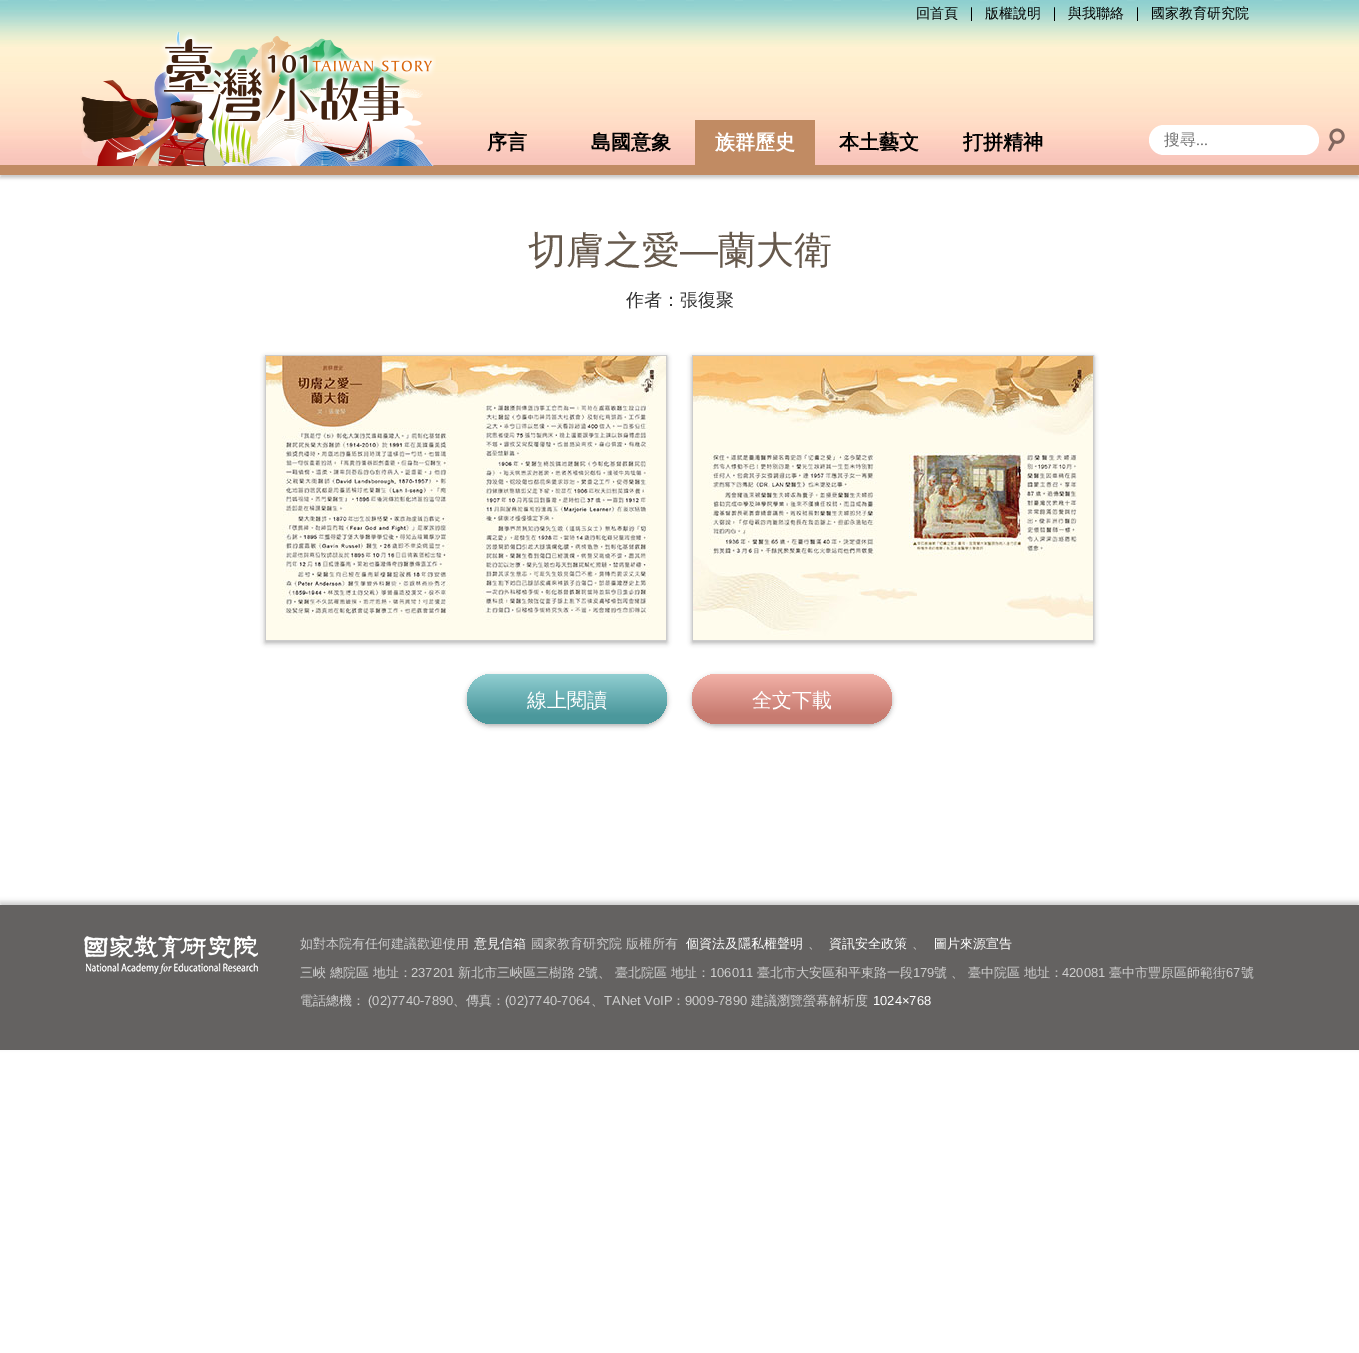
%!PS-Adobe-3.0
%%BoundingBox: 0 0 1359 1353
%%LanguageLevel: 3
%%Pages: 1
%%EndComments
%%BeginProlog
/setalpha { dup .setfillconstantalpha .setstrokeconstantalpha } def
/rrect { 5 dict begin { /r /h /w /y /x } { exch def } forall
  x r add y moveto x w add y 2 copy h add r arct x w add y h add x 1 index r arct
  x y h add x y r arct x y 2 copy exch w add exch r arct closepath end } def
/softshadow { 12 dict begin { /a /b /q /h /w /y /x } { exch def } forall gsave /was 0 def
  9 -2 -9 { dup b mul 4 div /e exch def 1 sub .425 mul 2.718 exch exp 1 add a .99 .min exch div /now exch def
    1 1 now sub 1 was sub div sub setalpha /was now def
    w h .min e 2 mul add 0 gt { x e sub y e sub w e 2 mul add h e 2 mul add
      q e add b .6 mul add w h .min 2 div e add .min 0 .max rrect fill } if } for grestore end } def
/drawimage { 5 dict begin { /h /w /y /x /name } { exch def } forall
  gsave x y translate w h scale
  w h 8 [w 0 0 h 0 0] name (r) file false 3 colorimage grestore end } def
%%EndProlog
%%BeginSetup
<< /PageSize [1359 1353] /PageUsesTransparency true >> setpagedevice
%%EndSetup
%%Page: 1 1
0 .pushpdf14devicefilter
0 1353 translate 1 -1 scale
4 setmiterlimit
1 setgray
0 0 1359 1353 rectfill
(images/1.raw) 0 0 1359 165 drawimage
0 setgray
0 168 1359 10 0 1.5 0.2 softshadow
0.757 0.545 0.388 setrgbcolor
0 165 1359 10 rectfill
(images/2.raw) 80 31 356 135 drawimage
695 120 120 45 rectfill
1 setgray
1149 125 170 30 15 rrect fill
(images/3.raw) 1328 128 17 24 drawimage
0 setgray
265 357 402 286 0 2.5 0.3 softshadow
692 357 402 286 0 2.5 0.3 softshadow
0.8 setgray
265.5 355.5 401 285 rectstroke
692.5 355.5 401 285 rectstroke
(images/4.raw) 266 356 400 284 drawimage
(images/5.raw) 693 356 400 284 drawimage
0 setgray
467 676 200 50 25 2.5 0.3 softshadow
gsave 467 674 200 50 25 rrect clip newpath
<< /ShadingType 2 /ColorSpace /DeviceRGB /Coords [567 724 567 674] /Extend [true true] /Function << /FunctionType 3 /Domain [0 1] /Functions [<< /FunctionType 2 /Domain [0 1] /C0 [0.294 0.596 0.612] /C1 [0.294 0.596 0.612] /N 1 >> << /FunctionType 2 /Domain [0 1] /C0 [0.294 0.596 0.612] /C1 [0.565 0.808 0.82] /N 1 >>] /Bounds [0.17] /Encode [0 1 0 1] >> >> shfill grestore
692 676 200 50 25 2.5 0.3 softshadow
gsave 692 674 200 50 25 rrect clip newpath
<< /ShadingType 2 /ColorSpace /DeviceRGB /Coords [792 724 792 674] /Extend [true true] /Function << /FunctionType 3 /Domain [0 1] /Functions [<< /FunctionType 2 /Domain [0 1] /C0 [0.78 0.482 0.439] /C1 [0.78 0.482 0.439] /N 1 >> << /FunctionType 2 /Domain [0 1] /C0 [0.78 0.482 0.439] /C1 [0.949 0.694 0.655] /N 1 >>] /Bounds [0.17] /Encode [0 1 0 1] >> >> shfill grestore
0 902 1359 145 0 2.5 0.2 softshadow
0.392 0.384 0.38 setrgbcolor
0 905 1359 145 rectfill
(images/6.raw) 84 935 174 39 drawimage
/WenQuanYiZenHei-Medium [14 0 0 -14 0 0] selectfont
0 setgray
916 18 moveto (回首頁) show
/DejaVuSans-Regular [14 0 0 -14 0 0] selectfont
968 18 moveto (∣) show
/WenQuanYiZenHei-Medium [14 0 0 -14 0 0] selectfont
985 18 moveto (版權說明) show
/DejaVuSans-Regular [14 0 0 -14 0 0] selectfont
1051 18 moveto (∣) show
/WenQuanYiZenHei-Medium [14 0 0 -14 0 0] selectfont
1068 18 moveto (與我聯絡) show
/DejaVuSans-Regular [14 0 0 -14 0 0] selectfont
1134 18 moveto (∣) show
/WenQuanYiZenHei-Medium [14 0 0 -14 0 0] selectfont
1151 18 moveto (國家教育研究院) show
/WenQuanYiZenHei-Bold [20 0 0 -20 0 0] selectfont
487 149 moveto (序言) show
591 149 moveto (島國意象) show
1 setgray
715 149 moveto (族群歷史) show
0 setgray
839 149 moveto (本土藝文) show
963 149 moveto (打拼精神) show
/WenQuanYiZenHei-Medium [16 0 0 -16 0 0] selectfont
0.459 setgray
1164 145 moveto (搜尋) show
/LiberationSerif-Regular [16 0 0 -16 0 0] selectfont
1196 145 moveto (...) show
/WenQuanYiZenHei-Medium [38 0 0 -38 0 0] selectfont
0.4 0.349 0.298 setrgbcolor
528 263 moveto (切膚之愛) show
/LiberationSans-Regular [38 0 0 -38 0 0] selectfont
680 263 moveto (—) show
/WenQuanYiZenHei-Medium [38 0 0 -38 0 0] selectfont
718 263 moveto (蘭大衛) show
/WenQuanYiZenHei-Medium [18 0 0 -18 0 0] selectfont
0.2 setgray
626 306 moveto (作者：張復聚) show
/WenQuanYiZenHei-Medium [20 0 0 -20 0 0] selectfont
1 setgray
527 707 moveto (線上閱讀) show
752 707 moveto (全文下載) show
/WenQuanYiZenHei-Medium [13 0 0 -13 0 0] selectfont
0.808 setgray
300 948 moveto (如對本院有任何建議歡迎使用) show
1 setgray
474 948 moveto (意見信箱) show
0.808 setgray
531 948 moveto (國家教育研究院 版權所有) show
1 setgray
686 948 moveto (個資法及隱私權聲明) show
0.808 setgray
808 948 moveto (、) show
1 setgray
829 948 moveto (資訊安全政策) show
0.808 setgray
912 948 moveto (、) show
1 setgray
934 948 moveto (圖片來源宣告) show
0.808 setgray
300 977 moveto (三峽 總院區 地址：) show
/LiberationSans-Regular [13 0 0 -13 0 0] selectfont
411 977 moveto (237201) show
/WenQuanYiZenHei-Medium [13 0 0 -13 0 0] selectfont
458 977 moveto (新北市三峽區三樹路) show
/LiberationSans-Regular [13 0 0 -13 0 0] selectfont
578 977 moveto (2) show
/WenQuanYiZenHei-Medium [13 0 0 -13 0 0] selectfont
585 977 moveto (號、 臺北院區 地址：) show
/LiberationSans-Regular [13 0 0 -13 0 0] selectfont
710 977 moveto (106011) show
/WenQuanYiZenHei-Medium [13 0 0 -13 0 0] selectfont
757 977 moveto (臺北市大安區和平東路一段) show
/LiberationSans-Regular [13 0 0 -13 0 0] selectfont
913 977 moveto (179) show
/WenQuanYiZenHei-Medium [13 0 0 -13 0 0] selectfont
934 977 moveto (號 、 臺中院區 地址：) show
/LiberationSans-Regular [13 0 0 -13 0 0] selectfont
1062 977 moveto (420081) show
/WenQuanYiZenHei-Medium [13 0 0 -13 0 0] selectfont
1109 977 moveto (臺中市豐原區師範街) show
/LiberationSans-Regular [13 0 0 -13 0 0] selectfont
1226 977 moveto (67) show
/WenQuanYiZenHei-Medium [13 0 0 -13 0 0] selectfont
1241 977 moveto (號) show
300 1005 moveto (電話總機：) show
/LiberationSans-Regular [13 0 0 -13 0 0] selectfont
368 1005 moveto (\(02\)7740-7890) show
/WenQuanYiZenHei-Medium [13 0 0 -13 0 0] selectfont
453 1005 moveto (、傳真：) show
/LiberationSans-Regular [13 0 0 -13 0 0] selectfont
505 1005 moveto (\(02\)7740-7064) show
604 1005 moveto (TANet VoIP) show
/WenQuanYiZenHei-Medium [13 0 0 -13 0 0] selectfont
672 1005 moveto (：) show
/LiberationSans-Regular [13 0 0 -13 0 0] selectfont
685 1005 moveto (9009-7890) show
/WenQuanYiZenHei-Medium [13 0 0 -13 0 0] selectfont
751 1005 moveto (建議瀏覽螢幕解析度) show
/LiberationSans-Regular [13 0 0 -13 0 0] selectfont
1 setgray
873 1005 moveto (1024×768) show
/WenQuanYiZenHei-Medium [13 0 0 -13 0 0] selectfont
0.808 setgray
591 1005 moveto (、) show
.poppdf14devicefilter showpage
%%EOF
